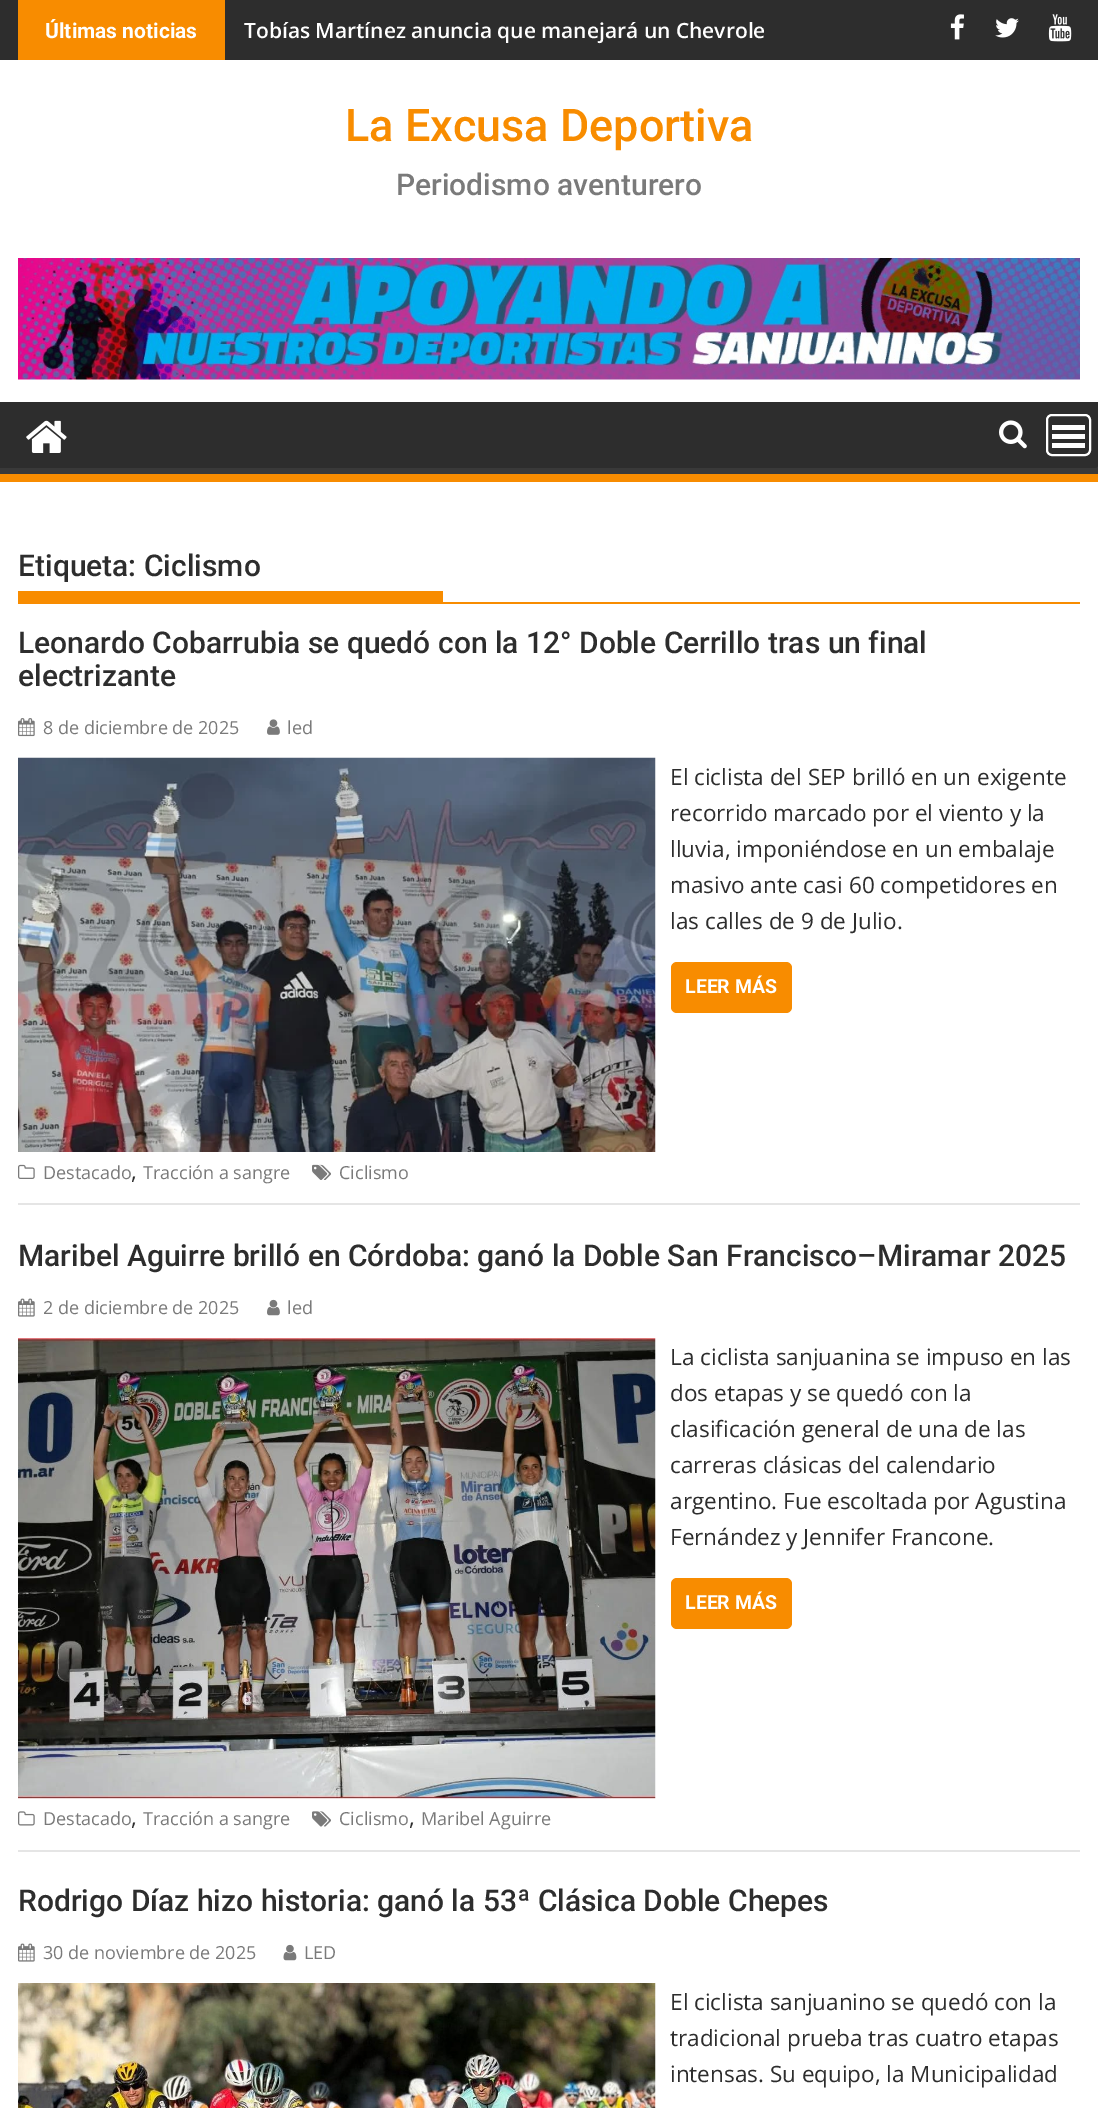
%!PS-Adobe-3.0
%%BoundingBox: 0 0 1098 2108
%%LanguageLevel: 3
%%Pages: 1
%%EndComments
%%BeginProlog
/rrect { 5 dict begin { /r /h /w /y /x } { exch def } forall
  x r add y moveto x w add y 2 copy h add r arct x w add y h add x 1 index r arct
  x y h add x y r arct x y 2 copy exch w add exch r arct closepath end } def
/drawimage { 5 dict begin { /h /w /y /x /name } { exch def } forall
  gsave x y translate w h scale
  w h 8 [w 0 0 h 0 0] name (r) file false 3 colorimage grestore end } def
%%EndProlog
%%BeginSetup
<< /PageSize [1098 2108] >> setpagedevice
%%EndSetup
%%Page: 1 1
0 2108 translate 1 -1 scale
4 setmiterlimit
1 setgray
0 0 1098 2108 rectfill
0.176 setgray
0 0 1098 60 rectfill
0.973 0.549 0 setrgbcolor
18 0 207 60 rectfill
(images/1.raw) 950 14 14 26 drawimage
(images/2.raw) 995 18 24 20 drawimage
(images/3.raw) 1048 14 24 28 drawimage
(images/4.raw) 18 258 1062 122 drawimage
0.176 setgray
0 402 1098 66 rectfill
gsave
0 402 1098 72 rectclip
0.224 setgray
newpath -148 254 moveto 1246 254 lineto 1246 622 lineto -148 622 lineto closepath -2 393 moveto 1096 393 lineto 1097 393 1098 394 1098 394 curveto 1098 466 lineto 1098 467 1097 468 1096 468 curveto -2 468 lineto -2 468 -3 467 -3 466 curveto -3 394 lineto -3 394 -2 393 -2 393 curveto closepath eofill
grestore
0.973 0.549 0 setrgbcolor
0 474 1098 8 rectfill
(images/5.raw) 26 420 41 33 drawimage
(images/6.raw) 999 420 28 29 drawimage
1 setgray
2 setlinewidth
1047 415 43 40 5 rrect stroke
1052 443 33 5 rectfill
1052 434 33 5 rectfill
1052 425 33 5 rectfill
0.973 0.549 0 setrgbcolor
18 602 1062 2 rectfill
18 591 425 11 rectfill
0.898 setgray
18 1203 1062 2 rectfill
(images/7.raw) 18 718 17 19 drawimage
(images/8.raw) 267 719 13 16 drawimage
(images/9.raw) 18 757 638 395 drawimage
0.973 0.549 0 setrgbcolor
671 962 121 51 6 rrect fill
(images/10.raw) 18 1164 17 15 drawimage
(images/11.raw) 312 1164 19 16 drawimage
0.898 setgray
18 1850 1062 2 rectfill
(images/12.raw) 18 1298 17 19 drawimage
(images/13.raw) 267 1299 13 17 drawimage
(images/14.raw) 18 1338 638 461 drawimage
0.973 0.549 0 setrgbcolor
671 1578 121 51 6 rrect fill
(images/15.raw) 18 1811 17 15 drawimage
(images/16.raw) 312 1811 19 16 drawimage
(images/12.raw) 18 1943 17 19 drawimage
(images/17.raw) 283 1944 14 17 drawimage
(images/18.raw) 18 1983 638 125 drawimage
/Roboto-Bold [21 0 0 -21 0 0] selectfont
1 setgray
45 38 moveto (Últimas noticias) show
/OpenSans-SemiBold [21 0 0 -21 0 0] selectfont
244 38 moveto (Tobías Martínez anuncia que manejará un Chevrole) show
/Roboto-Medium [45 0 0 -45 0 0] selectfont
0.973 0.549 0 setrgbcolor
345 141 moveto (La Excusa Deportiva) show
/Roboto-Medium [30 0 0 -30 0 0] selectfont
0.478 setgray
396 195 moveto (Periodismo aventurero) show
0.176 setgray
18 576 moveto (Etiqueta: Ciclismo) show
18 653 moveto (Leonardo Cobarrubia se quedó con la 12° Doble Cerrillo tras un final) show
18 686 moveto (electrizante) show
/OpenSans-Regular [18 0 0 -18 0 0] selectfont
0.478 setgray
43 734 moveto (8 de diciembre de 2025) show
287 734 moveto (led) show
/OpenSans-Regular [22.5 0 0 -22.5 0 0] selectfont
0.176 setgray
670 785 moveto (El ciclista del SEP brilló en un exigente) show
670 821 moveto (recorrido marcado por el viento y la) show
670 857 moveto (lluvia, imponiéndose en un embalaje) show
670 893 moveto (masivo ante casi 60 competidores en) show
670 929 moveto (las calles de 9 de Julio.) show
/Roboto-Bold [19.5 0 0 -19.5 0 0] selectfont
1 setgray
685 993 moveto (LEER MÁS) show
/OpenSans-Regular [18 0 0 -18 0 0] selectfont
0.478 setgray
43 1179 moveto (Destacado) show
/OpenSans-Regular [22.5 0 0 -22.5 0 0] selectfont
0.176 setgray
131 1179 moveto (,) show
/OpenSans-Regular [18 0 0 -18 0 0] selectfont
0.478 setgray
143 1179 moveto (Tracción a sangre) show
339 1179 moveto (Ciclismo) show
/Roboto-Medium [30 0 0 -30 0 0] selectfont
0.176 setgray
18 1266 moveto (Maribel Aguirre brilló en Córdoba: ganó la Doble San Francisco–Miramar 2025) show
/OpenSans-Regular [18 0 0 -18 0 0] selectfont
0.478 setgray
43 1314 moveto (2 de diciembre de 2025) show
287 1314 moveto (led) show
/OpenSans-Regular [22.5 0 0 -22.5 0 0] selectfont
0.176 setgray
670 1365 moveto (La ciclista sanjuanina se impuso en las) show
670 1401 moveto (dos etapas y se quedó con la) show
670 1437 moveto (clasificación general de una de las) show
670 1473 moveto (carreras clásicas del calendario) show
670 1509 moveto (argentino. Fue escoltada por Agustina) show
670 1545 moveto (Fernández y Jennifer Francone.) show
/Roboto-Bold [19.5 0 0 -19.5 0 0] selectfont
1 setgray
685 1609 moveto (LEER MÁS) show
/OpenSans-Regular [18 0 0 -18 0 0] selectfont
0.478 setgray
43 1825 moveto (Destacado) show
/OpenSans-Regular [22.5 0 0 -22.5 0 0] selectfont
0.176 setgray
131 1825 moveto (,) show
/OpenSans-Regular [18 0 0 -18 0 0] selectfont
0.478 setgray
143 1825 moveto (Tracción a sangre) show
339 1825 moveto (Ciclismo) show
/OpenSans-Regular [22.5 0 0 -22.5 0 0] selectfont
0.176 setgray
409 1825 moveto (,) show
/OpenSans-Regular [18 0 0 -18 0 0] selectfont
0.478 setgray
421 1825 moveto (Maribel Aguirre) show
/Roboto-Medium [30 0 0 -30 0 0] selectfont
0.176 setgray
18 1911 moveto (Rodrigo Díaz hizo historia: ganó la 53ª Clásica Doble Chepes) show
/OpenSans-Regular [18 0 0 -18 0 0] selectfont
0.478 setgray
43 1959 moveto (30 de noviembre de 2025) show
304 1959 moveto (LED) show
/OpenSans-Regular [22.5 0 0 -22.5 0 0] selectfont
0.176 setgray
670 2010 moveto (El ciclista sanjuanino se quedó con la) show
670 2046 moveto (tradicional prueba tras cuatro etapas) show
670 2082 moveto (intensas. Su equipo, la Municipalidad) show
showpage
%%EOF
